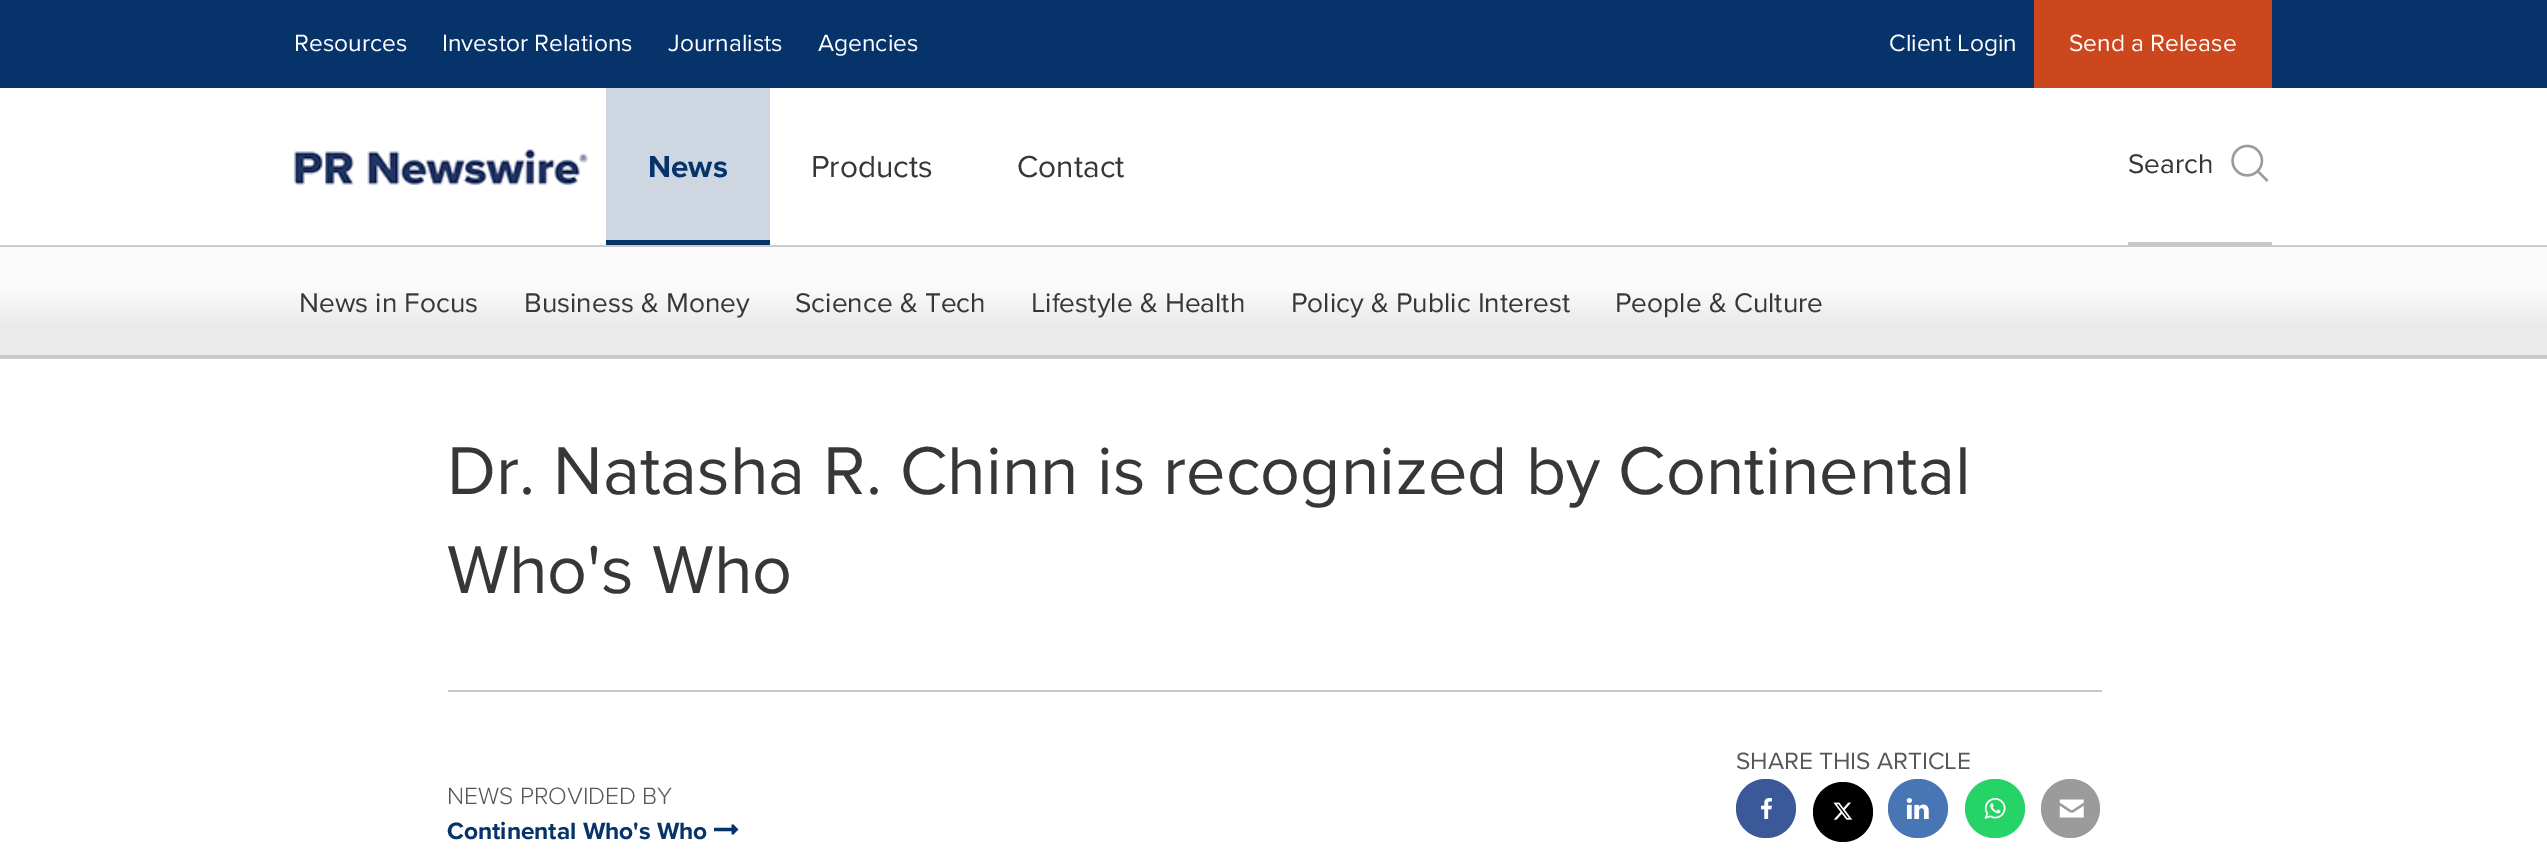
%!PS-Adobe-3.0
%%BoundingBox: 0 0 2547 863
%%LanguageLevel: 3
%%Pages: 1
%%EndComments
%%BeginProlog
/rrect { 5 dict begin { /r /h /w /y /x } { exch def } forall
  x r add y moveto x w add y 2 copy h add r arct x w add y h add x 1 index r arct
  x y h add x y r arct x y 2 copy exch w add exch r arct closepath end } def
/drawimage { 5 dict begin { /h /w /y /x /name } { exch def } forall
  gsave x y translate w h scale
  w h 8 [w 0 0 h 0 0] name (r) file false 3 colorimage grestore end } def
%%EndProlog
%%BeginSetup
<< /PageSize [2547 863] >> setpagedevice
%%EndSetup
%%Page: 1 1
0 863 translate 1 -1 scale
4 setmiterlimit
1 setgray
0 0 2547 863 rectfill
0.024 0.2 0.412 setrgbcolor
0 0 2547 88 rectfill
0.8 0.278 0.118 setrgbcolor
2034 0 238 88 rectfill
0.792 0.784 0.784 setrgbcolor
0 245 2547 2 rectfill
(images/1.raw) 294 149 294 36 drawimage
0.804 0.839 0.882 setrgbcolor
606 88 164 152 rectfill
0.024 0.2 0.412 setrgbcolor
606 240 164 5 rectfill
0.792 0.784 0.784 setrgbcolor
2128 242 144 3 rectfill
(images/2.raw) 2231 144 38 38 drawimage
gsave newpath 0 247 moveto 2547 247 lineto 2547 355 lineto 0 355 lineto closepath clip newpath
<< /ShadingType 2 /ColorSpace /DeviceRGB /Coords [1274 247 1274 355] /Extend [true true] /Function << /FunctionType 3 /Domain [0 1] /Functions [<< /FunctionType 2 /Domain [0 1] /C0 [0.98 0.98 0.98] /C1 [0.98 0.98 0.98] /N 1 >> << /FunctionType 2 /Domain [0 1] /C0 [0.98 0.98 0.98] /C1 [0.918 0.918 0.918] /N 1 >> << /FunctionType 2 /Domain [0 1] /C0 [0.918 0.918 0.918] /C1 [0.918 0.918 0.918] /N 1 >>] /Bounds [0.4 0.74] /Encode [0 1 0 1 0 1] >> >> shfill grestore
0 355 2547 4 rectfill
448 690 1654 2 rectfill
0.231 0.349 0.6 setrgbcolor
1736 779 60 59 29.5 rrect fill
(images/3.raw) 1761 798 11 21 drawimage
0 setgray
newpath 1843 812 30 0 360 arc closepath fill
(images/4.raw) 1833 802 20 18 drawimage
0.282 0.459 0.706 setrgbcolor
1888 779 60 59 29.5 rrect fill
(images/5.raw) 1906 798 23 21 drawimage
0.145 0.827 0.4 setrgbcolor
1965 779 60 59 29.5 rrect fill
(images/6.raw) 1984 798 22 21 drawimage
0.608 setgray
newpath 2070.5 808.5 29.5 0 360 arc closepath fill
(images/7.raw) 2059 799 25 19 drawimage
(images/8.raw) 714 824 25 11 drawimage
/ProximaNova-Regular [24.5 0 0 -24.5 0 0] selectfont
1 setgray
294 51 moveto (Resources) show
442 51 moveto (Investor Relations) show
668 51 moveto (Journalists) show
818 51 moveto (Agencies) show
1889 51 moveto (Client Login) show
2069 51 moveto (Send a Release) show
/ProximaNova-Bold [31.5 0 0 -31.5 0 0] selectfont
0.024 0.2 0.412 setrgbcolor
648 177 moveto (News) show
/ProximaNova-Regular [31.5 0 0 -31.5 0 0] selectfont
0.216 setgray
811 177 moveto (Products) show
1017 177 moveto (Contact) show
/ProximaNova-Regular [28 0 0 -28 0 0] selectfont
2128 173 moveto (Search) show
299 312 moveto (News in Focus) show
524 312 moveto (Business & Money) show
795 312 moveto (Science & Tech) show
1031 312 moveto (Lifestyle & Health) show
1291 312 moveto (Policy & Public Interest) show
1615 312 moveto (People & Culture) show
/ProximaNova-Regular [70 0 0 -70 0 0] selectfont
447 494 moveto (Dr. Natasha R. Chinn is recognized by Continental) show
447 593 moveto (Who's Who) show
/ProximaNova-Regular [24.5 0 0 -24.5 0 0] selectfont
0.341 setgray
1736 769 moveto (SHARE THIS ARTICLE) show
/ProximaNova-Light [24.5 0 0 -24.5 0 0] selectfont
447 804 moveto (NEWS PROVIDED BY) show
/ProximaNova-Bold [24.5 0 0 -24.5 0 0] selectfont
0.024 0.2 0.412 setrgbcolor
447 839 moveto (Continental Who's Who) show
showpage
%%EOF
